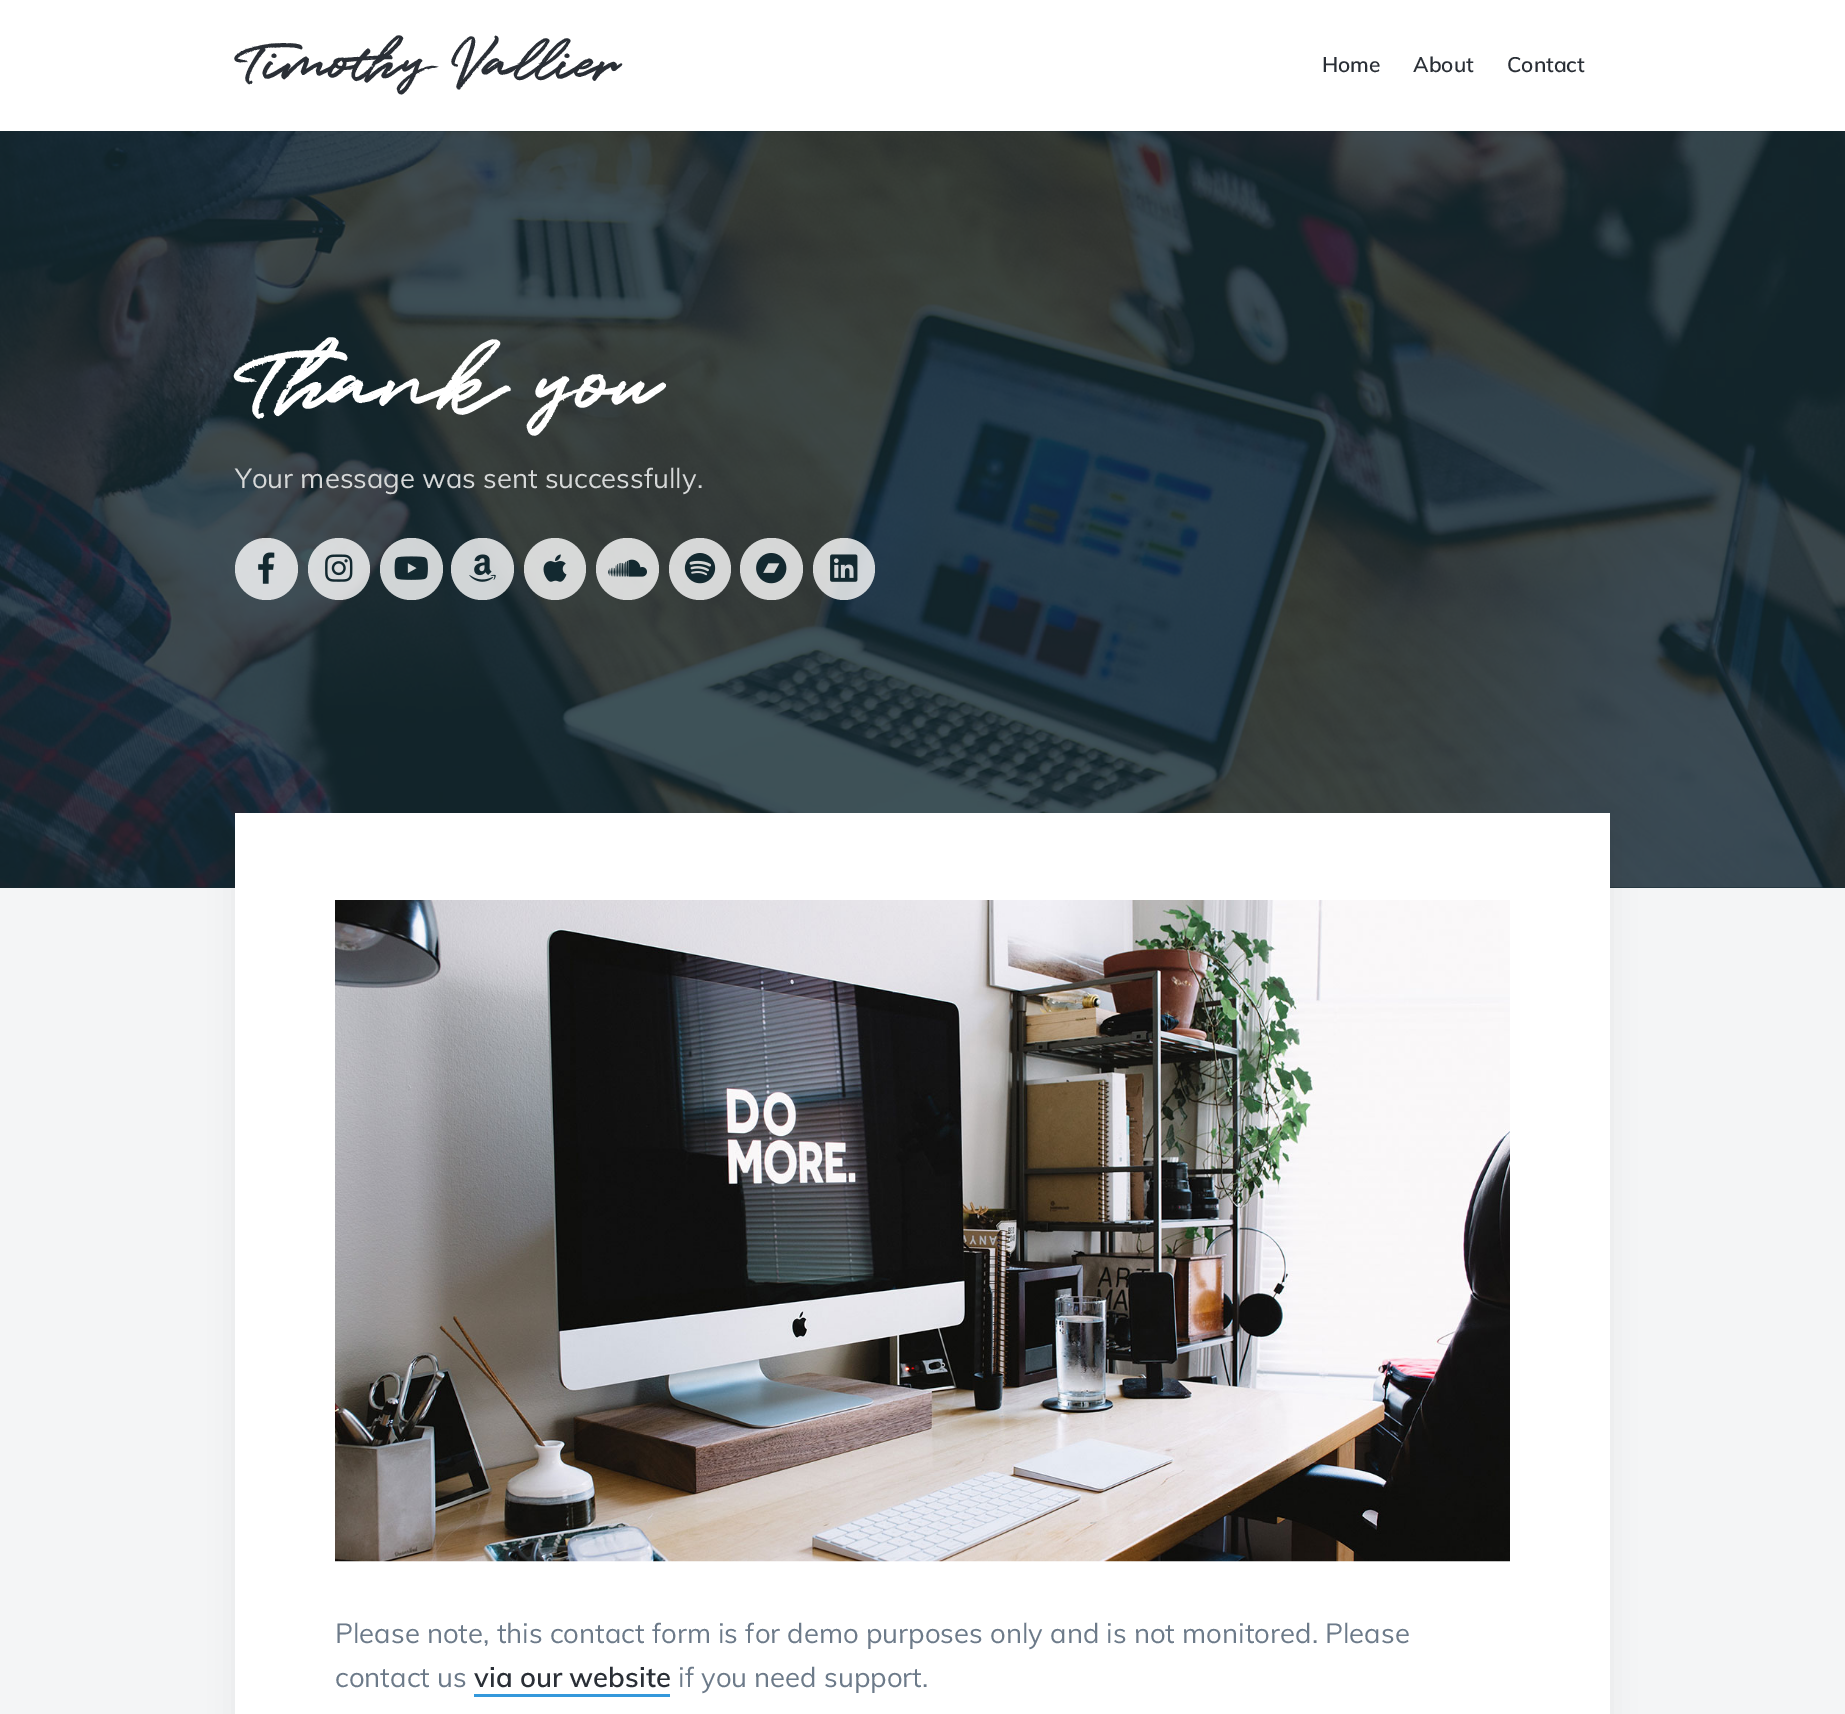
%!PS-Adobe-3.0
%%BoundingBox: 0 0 1845 1714
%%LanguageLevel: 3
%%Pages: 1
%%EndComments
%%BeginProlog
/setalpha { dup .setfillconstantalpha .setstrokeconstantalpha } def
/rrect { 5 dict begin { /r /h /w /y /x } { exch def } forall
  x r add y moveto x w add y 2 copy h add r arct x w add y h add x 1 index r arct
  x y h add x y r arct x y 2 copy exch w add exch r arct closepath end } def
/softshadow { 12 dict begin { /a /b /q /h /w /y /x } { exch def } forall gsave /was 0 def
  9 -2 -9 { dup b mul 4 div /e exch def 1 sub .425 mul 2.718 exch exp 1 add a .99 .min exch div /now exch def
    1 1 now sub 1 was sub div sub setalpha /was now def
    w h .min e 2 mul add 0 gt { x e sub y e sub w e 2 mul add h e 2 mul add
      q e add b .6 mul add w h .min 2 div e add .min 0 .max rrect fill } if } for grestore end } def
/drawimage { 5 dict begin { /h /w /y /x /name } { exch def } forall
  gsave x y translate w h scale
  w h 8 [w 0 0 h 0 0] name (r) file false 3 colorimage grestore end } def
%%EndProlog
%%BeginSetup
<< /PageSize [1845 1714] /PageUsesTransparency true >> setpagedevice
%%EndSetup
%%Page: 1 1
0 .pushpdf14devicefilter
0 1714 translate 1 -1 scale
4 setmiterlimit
1 setgray
0 0 1845 1714 rectfill
0.075 0.161 0.188 setrgbcolor
0 131 1845 757 rectfill
(images/1.raw) 0 131 1845 757 drawimage
0.8 setalpha
1 setgray
235 538 63 62 31 rrect fill
1 setalpha
(images/2.raw) 258 552 17 32 drawimage
0.8 setalpha
newpath 339 569 31 0 360 arc closepath fill
1 setalpha
(images/3.raw) 325 554 28 28 drawimage
0.8 setalpha
380 538 63 62 31 rrect fill
1 setalpha
(images/4.raw) 394 556 34 24 drawimage
0.8 setalpha
451 538 63 62 31 rrect fill
1 setalpha
(images/5.raw) 469 554 27 28 drawimage
0.8 setalpha
newpath 555 569 31 0 360 arc closepath fill
1 setalpha
(images/6.raw) 543 554 24 28 drawimage
0.8 setalpha
596 538 63 62 31 rrect fill
1 setalpha
(images/7.raw) 608 559 39 18 drawimage
0.8 setalpha
newpath 700 569 31 0 360 arc closepath fill
1 setalpha
(images/8.raw) 684 553 32 31 drawimage
0.8 setalpha
740 538 63 62 31 rrect fill
1 setalpha
(images/9.raw) 756 553 31 31 drawimage
0.8 setalpha
newpath 844 569 31 0 360 arc closepath fill
1 setalpha
(images/10.raw) 830 554 28 28 drawimage
0.957 0.961 0.965 setrgbcolor
0 888 1845 826 rectfill
0 setgray
235 830 1375 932 0 16 0.05 softshadow
1 setgray
235 813 1375 901 rectfill
(images/11.raw) 335 900 1175 662 drawimage
0.204 0.596 0.859 setrgbcolor
474 1694 196 3 rectfill
/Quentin-Bold [56.25 0 0 -56.25 0 0] selectfont
0.165 0.184 0.212 setrgbcolor
235 79 moveto -1.1 0 (Timothy Vallier) ashow
/Muli-SemiBold [21 0 0 -21 0 0] selectfont
1322 72 moveto (Home) show
1413 72 moveto (About) show
1507 72 moveto (Contact) show
/Quentin-Bold [93.75 0 0 -93.75 0 0] selectfont
1 setgray
235 410 moveto -2.75 0 (Thank you) ashow
/Muli-Regular [27.5 0 0 -27.5 0 0] selectfont
0.839 0.847 0.847 setrgbcolor
235 488 moveto (Your message was sent successfully.) show
0.424 0.478 0.537 setrgbcolor
335 1643 moveto (Please note, this contact form is for demo purposes only and is not monitored. Please) show
335 1687 moveto (contact us) show
/Muli-SemiBold [27.5 0 0 -27.5 0 0] selectfont
0.165 0.184 0.212 setrgbcolor
474 1687 moveto (via our website) show
/Muli-Regular [27.5 0 0 -27.5 0 0] selectfont
0.424 0.478 0.537 setrgbcolor
678 1687 moveto (if you need support.) show
.poppdf14devicefilter showpage
%%EOF
